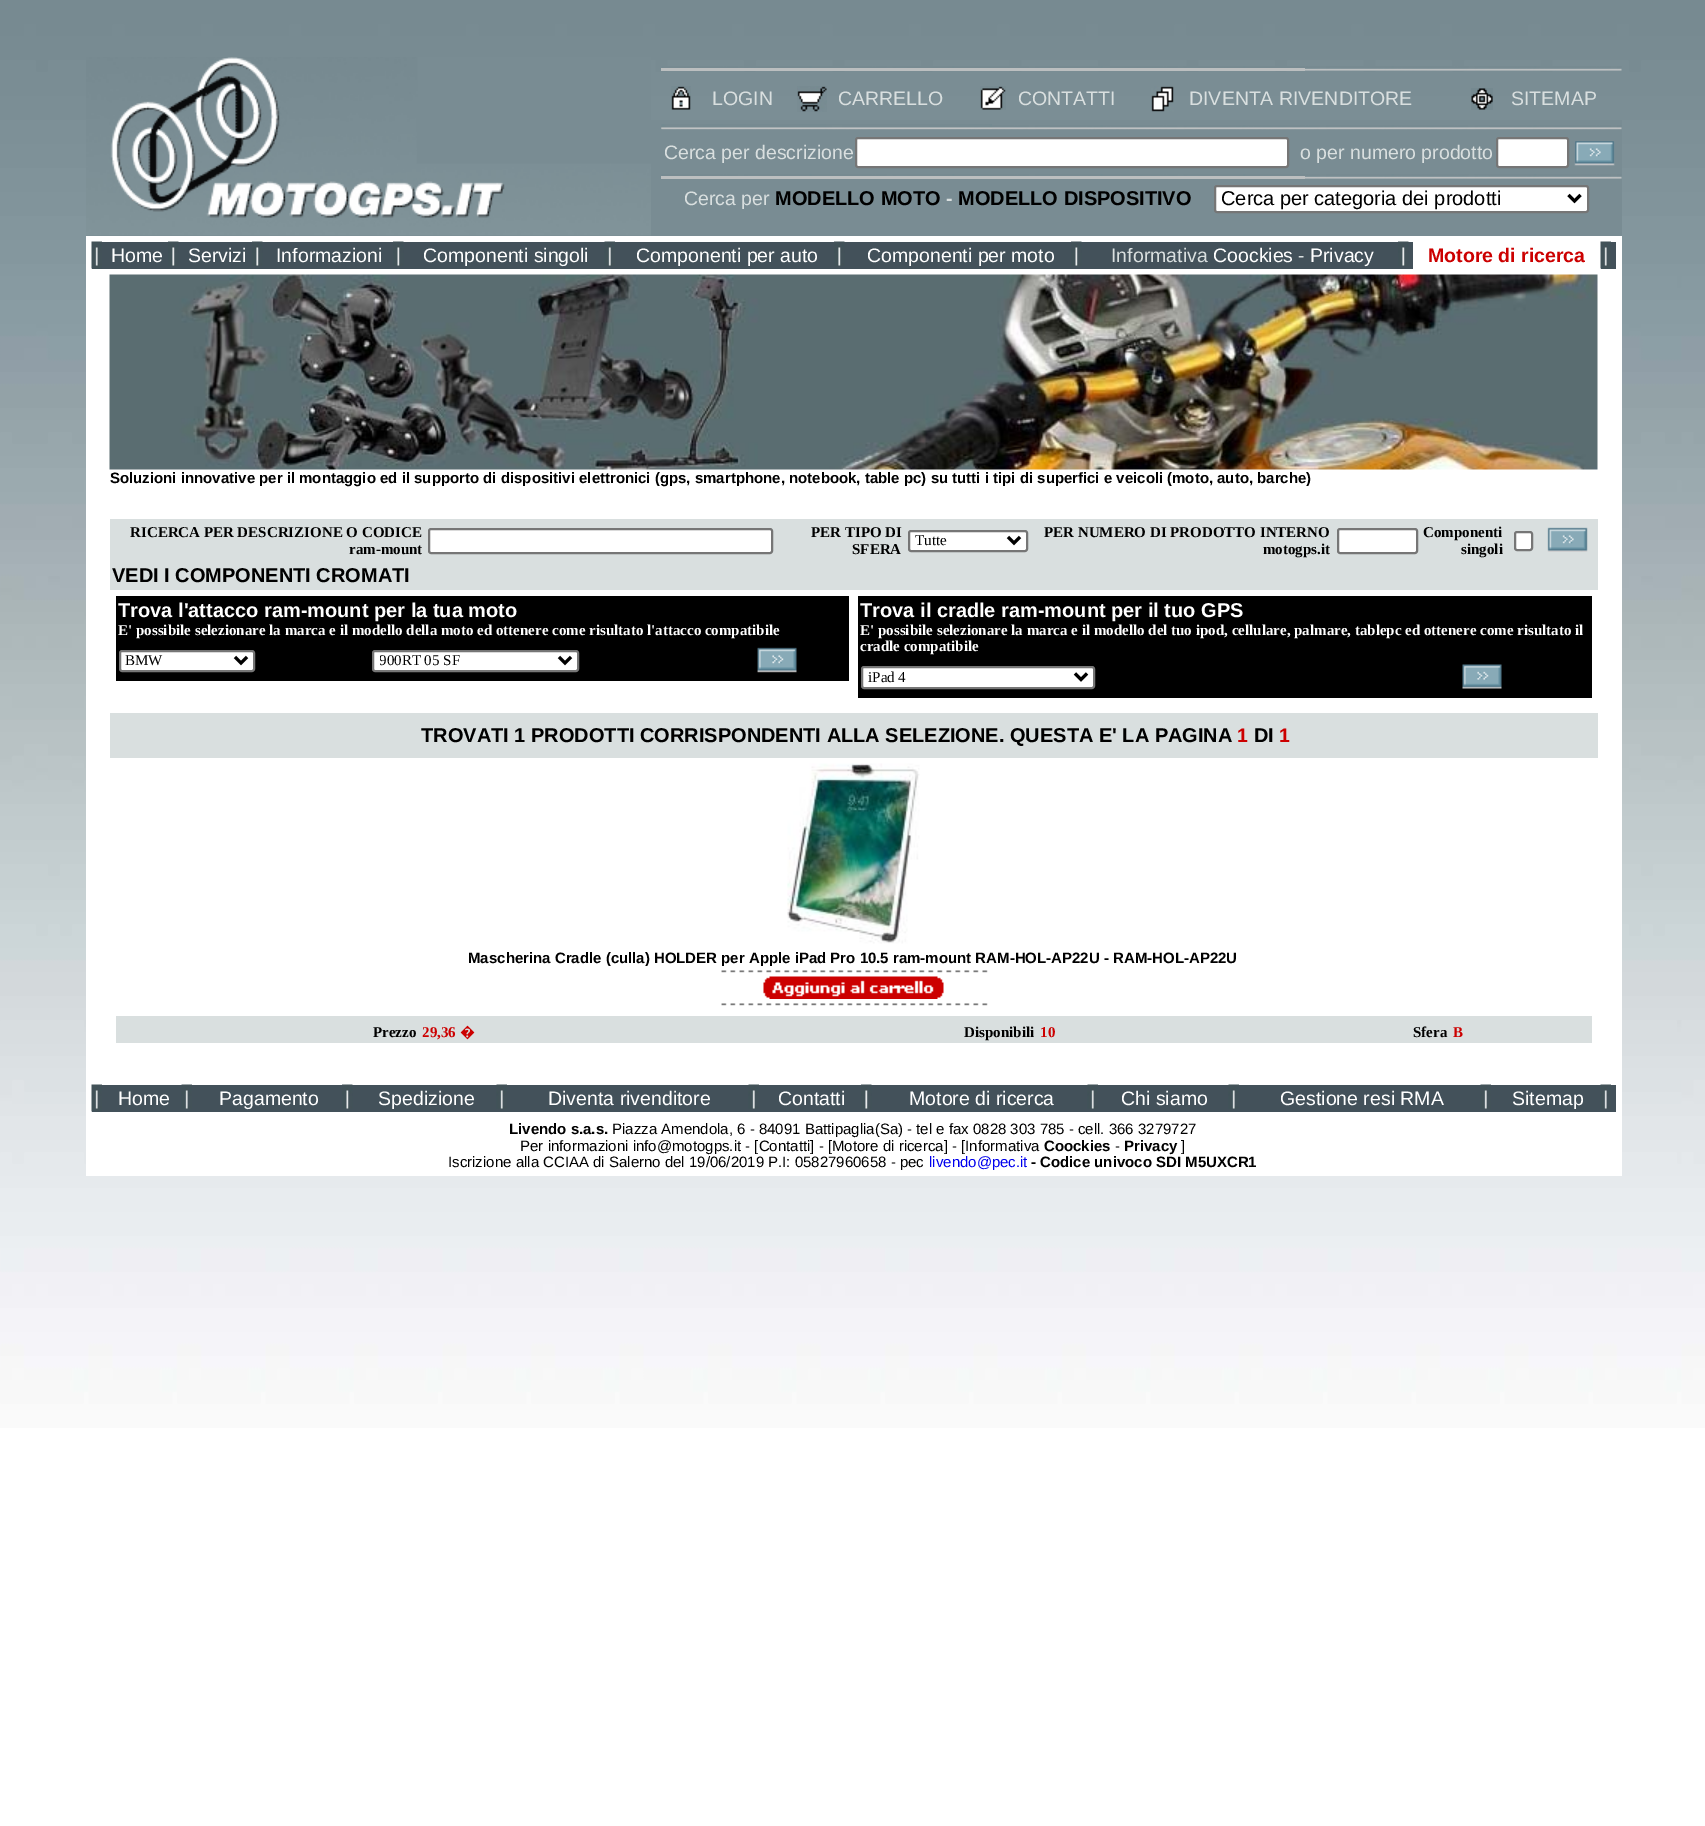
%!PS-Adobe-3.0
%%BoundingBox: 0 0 1705 1826
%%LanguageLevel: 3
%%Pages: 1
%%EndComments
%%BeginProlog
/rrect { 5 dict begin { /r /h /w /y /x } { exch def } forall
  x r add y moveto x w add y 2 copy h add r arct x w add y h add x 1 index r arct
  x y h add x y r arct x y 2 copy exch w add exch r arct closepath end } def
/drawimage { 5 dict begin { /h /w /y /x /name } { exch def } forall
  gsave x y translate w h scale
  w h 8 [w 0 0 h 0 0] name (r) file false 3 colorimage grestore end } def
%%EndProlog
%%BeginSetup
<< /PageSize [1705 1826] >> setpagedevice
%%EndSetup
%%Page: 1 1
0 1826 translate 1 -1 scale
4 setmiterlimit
1 setgray
0 0 1705 1826 rectfill
(images/1.raw) 0 0 1705 1428 drawimage
86 236 1536 940 rectfill
0.475 0.549 0.576 setrgbcolor
86 120 1536 116 rectfill
(images/2.raw) 86 57 565 179 drawimage
(images/3.raw) 661 66 961 5 drawimage
0.737 0.749 0.753 setrgbcolor
661 68 644 3 rectfill
(images/4.raw) 671 86 20 24 drawimage
(images/5.raw) 797 86 30 26 drawimage
(images/6.raw) 980 86 26 24 drawimage
(images/7.raw) 1151 86 23 26 drawimage
(images/8.raw) 1471 88 22 22 drawimage
(images/9.raw) 661 125 961 5 drawimage
(images/10.raw) 661 124 331 5 drawimage
1 setgray
856 138 432 29 2 rrect gsave fill grestore
0.463 setgray
2 setlinewidth
stroke
1 setgray
1497 138 71 29 2 rrect gsave fill grestore
0.463 setgray
stroke
(images/11.raw) 1574 141 41 25 drawimage
(images/12.raw) 661 174 961 5 drawimage
0.737 0.749 0.753 setrgbcolor
661 176 644 3 rectfill
1 setgray
1215 186 373 26 2 rrect gsave fill grestore
0.463 setgray
stroke
0 setgray
3 setlinewidth
newpath 1568.5 195 moveto 1574.5 201 lineto 1580.5 195 lineto stroke
0.263 0.318 0.353 setrgbcolor
92 242 1524 27 rectfill
(images/13.raw) 91 241 11 28 drawimage
(images/14.raw) 168 241 11 25 drawimage
(images/14.raw) 252 241 11 25 drawimage
(images/15.raw) 393 241 11 25 drawimage
(images/16.raw) 604 241 11 25 drawimage
(images/14.raw) 834 241 11 25 drawimage
(images/15.raw) 1071 241 11 25 drawimage
(images/14.raw) 1398 241 11 25 drawimage
1 setgray
1413 242 188 27 rectfill
(images/13.raw) 1600 241 11 28 drawimage
(images/17.raw) 109 274 1489 196 drawimage
0.851 0.875 0.875 setrgbcolor
110 519 1488 71 rectfill
1 setgray
429 529 343 24 2 rrect gsave fill grestore
0.463 setgray
2 setlinewidth
stroke
1 setgray
909 531 118 20 2 rrect gsave fill grestore
0.463 setgray
stroke
0 setgray
3 setlinewidth
newpath 1008 537 moveto 1014 543 lineto 1020 537 lineto stroke
1 setgray
1338 529 79 24 2 rrect gsave fill grestore
0.463 setgray
2 setlinewidth
stroke
1 setgray
1515 532 17 18 2 rrect gsave fill grestore
0.463 setgray
stroke
(images/18.raw) 1547 527 41 25 drawimage
0 setgray
116 596 733 85 rectfill
1 setgray
120 651 134 20 2 rrect gsave fill grestore
0.463 setgray
stroke
0 setgray
3 setlinewidth
newpath 235 657 moveto 241 663 lineto 247 657 lineto stroke
1 setgray
373 651 205 20 2 rrect gsave fill grestore
0.463 setgray
2 setlinewidth
stroke
0 setgray
3 setlinewidth
newpath 559 657 moveto 565 663 lineto 571 657 lineto stroke
(images/19.raw) 757 647 40 26 drawimage
858 596 734 102 rectfill
1 setgray
862 667 232 21 2 rrect gsave fill grestore
0.463 setgray
2 setlinewidth
stroke
0 setgray
3 setlinewidth
newpath 1075 673.5 moveto 1081 679.5 lineto 1087 673.5 lineto stroke
(images/20.raw) 1462 664 40 25 drawimage
0.851 0.875 0.875 setrgbcolor
110 713 1488 45 rectfill
(images/21.raw) 787 763 133 181 drawimage
(images/23.raw) 763 976 181 23 drawimage
(images/24.raw) 721 1003 267 3 drawimage
116 1016 1476 27 rectfill
0.263 0.318 0.353 setrgbcolor
92 1085 1524 27 rectfill
(images/13.raw) 91 1084 11 28 drawimage
(images/25.raw) 181 1084 11 25 drawimage
(images/15.raw) 342 1084 11 25 drawimage
(images/25.raw) 496 1084 11 25 drawimage
(images/16.raw) 748 1084 11 25 drawimage
(images/14.raw) 861 1084 11 25 drawimage
(images/25.raw) 1087 1084 11 25 drawimage
(images/25.raw) 1228 1084 11 25 drawimage
(images/16.raw) 1480 1084 11 25 drawimage
(images/25.raw) 1600 1084 11 25 drawimage
/LiberationSans-Regular [19.5 0 0 -19.5 0 0] selectfont
0.851 0.875 0.875 setrgbcolor
712 105 moveto (LOGIN) show
838 105 moveto (CARRELLO) show
1018 105 moveto (CONTATTI) show
1189 105 moveto (DIVENTA RIVENDITORE) show
1511 105 moveto (SITEMAP) show
664 159 moveto (Cerca per descrizione) show
1300 159 moveto (o per numero prodotto) show
684 205 moveto (Cerca per) show
/LiberationSans-Bold [20 0 0 -20 0 0] selectfont
0 setgray
775 205 moveto (MODELLO MOTO) show
/LiberationSans-Bold [19.5 0 0 -19.5 0 0] selectfont
0.851 0.875 0.875 setrgbcolor
946 205 moveto (-) show
/LiberationSans-Bold [20 0 0 -20 0 0] selectfont
0 setgray
958 205 moveto (MODELLO DISPOSITIVO) show
/LiberationSans-Regular [20 0 0 -20 0 0] selectfont
1221 205 moveto (Cerca per categoria dei prodotti) show
/LiberationSans-Regular [19.5 0 0 -19.5 0 0] selectfont
1 setgray
111 262 moveto (Home) show
188 262 moveto (Servizi) show
276 262 moveto (Informazioni) show
423 262 moveto (Componenti singoli) show
636 262 moveto (Componenti per auto) show
867 262 moveto (Componenti per moto) show
0.851 0.875 0.875 setrgbcolor
1111 262 moveto (Informativa) show
1 setgray
1213 262 moveto (Coockies) show
0.851 0.875 0.875 setrgbcolor
1298 262 moveto (-) show
1 setgray
1310 262 moveto (Privacy) show
/LiberationSans-Bold [19.5 0 0 -19.5 0 0] selectfont
0.8 0 0 setrgbcolor
1428 262 moveto (Motore di ricerca) show
/LiberationSans-Bold [15 0 0 -15 0 0] selectfont
0 setgray
110 483 moveto (Soluzioni innovative per il montaggio ed il supporto di dispositivi elettronici \(gps, smartphone, notebook, table pc\) su tutti i tipi di superfici e veicoli \(moto, auto, barche\)) show
/LiberationSerif-Bold [15 0 0 -15 0 0] selectfont
130 537 moveto (RICERCA PER DESCRIZIONE O CODICE) show
349 554 moveto (ram-mount) show
811 537 moveto (PER TIPO DI) show
852 554 moveto (SFERA) show
/LiberationSerif-Regular [15 0 0 -15 0 0] selectfont
915 545 moveto (Tutte) show
/LiberationSerif-Bold [15 0 0 -15 0 0] selectfont
1044 537 moveto (PER NUMERO DI PRODOTTO INTERNO) show
1263 554 moveto (motogps.it) show
1423 537 moveto (Componenti) show
1461 554 moveto (singoli) show
/LiberationSans-Bold [20 0 0 -20 0 0] selectfont
112 582 moveto (VEDI I COMPONENTI CROMATI) show
1 setgray
118 617 moveto (Trova l'attacco ram-mount per la tua moto) show
/LiberationSerif-Bold [15 0 0 -15 0 0] selectfont
118 635 moveto (E' possibile selezionare la marca e il modello della moto ed ottenere come risultato l'attacco compatibile) show
/LiberationSerif-Regular [15 0 0 -15 0 0] selectfont
0 setgray
125 665 moveto (BMW) show
gsave
380 651 174 20 rectclip
379 665 moveto (900RT 05 SF) show
grestore
/LiberationSans-Bold [20 0 0 -20 0 0] selectfont
1 setgray
860 617 moveto (Trova il cradle ram-mount per il tuo GPS) show
/LiberationSerif-Bold [15 0 0 -15 0 0] selectfont
860 635 moveto (E' possibile selezionare la marca e il modello del tuo ipod, cellulare, palmare, tablepc ed ottenere come risultato il) show
860 651 moveto (cradle compatibile) show
/LiberationSerif-Regular [15 0 0 -15 0 0] selectfont
0 setgray
868 682 moveto (iPad 4) show
/LiberationSans-Bold [20 0 0 -20 0 0] selectfont
421 742 moveto (TROVATI 1 PRODOTTI CORRISPONDENTI ALLA SELEZIONE. QUESTA E' LA PAGINA) show
/LiberationSans-Bold [19.5 0 0 -19.5 0 0] selectfont
0.8 0 0 setrgbcolor
1237 742 moveto (1) show
/LiberationSans-Bold [20 0 0 -20 0 0] selectfont
0 setgray
1254 742 moveto (DI) show
/LiberationSans-Bold [19.5 0 0 -19.5 0 0] selectfont
0.8 0 0 setrgbcolor
1279 742 moveto (1) show
/LiberationSans-Bold [15 0 0 -15 0 0] selectfont
0 setgray
468 963 moveto (Mascherina Cradle \(culla\) HOLDER per Apple iPad Pro 10.5 ram-mount RAM-HOL-AP22U - RAM-HOL-AP22U) show
(images/22.raw) 721 966 267 7 drawimage
/LiberationSerif-Bold [15 0 0 -15 0 0] selectfont
373 1037 moveto (Prezzo) show
0.8 0 0 setrgbcolor
422 1037 moveto (29,36) show
/NotoSans-Bold [15 0 0 -15 0 0] selectfont
460 1037 moveto (�) show
/LiberationSerif-Bold [15 0 0 -15 0 0] selectfont
0 setgray
964 1037 moveto (Disponibili) show
0.8 0 0 setrgbcolor
1040 1037 moveto (10) show
0 setgray
1413 1037 moveto (Sfera) show
0.8 0 0 setrgbcolor
1453 1037 moveto (B) show
/LiberationSans-Regular [19.5 0 0 -19.5 0 0] selectfont
1 setgray
118 1105 moveto (Home) show
219 1105 moveto (Pagamento) show
378 1105 moveto (Spedizione) show
548 1105 moveto (Diventa rivenditore) show
778 1105 moveto (Contatti) show
909 1105 moveto (Motore di ricerca) show
1121 1105 moveto (Chi siamo) show
1280 1105 moveto (Gestione resi RMA) show
1512 1105 moveto (Sitemap) show
/LiberationSans-Bold [15 0 0 -15 0 0] selectfont
0 setgray
509 1134 moveto (Livendo s.a.s.) show
/LiberationSans-Regular [15 0 0 -15 0 0] selectfont
612 1134 moveto (Piazza Amendola, 6 - 84091 Battipaglia\(Sa\) - tel e fax 0828 303 785 - cell. 366 3279727) show
520 1151 moveto (Per informazioni info@motogps.it - [Contatti] - [Motore di ricerca] - [Informativa) show
/LiberationSans-Bold [15 0 0 -15 0 0] selectfont
1044 1151 moveto (Coockies) show
/LiberationSans-Regular [15 0 0 -15 0 0] selectfont
1115 1151 moveto (-) show
/LiberationSans-Bold [15 0 0 -15 0 0] selectfont
1124 1151 moveto (Privacy) show
/LiberationSans-Regular [15 0 0 -15 0 0] selectfont
1181 1151 moveto (]) show
448 1167 moveto (Iscrizione alla CCIAA di Salerno del 19/06/2019 P.I: 05827960658 - pec) show
0 0 0.933 setrgbcolor
929 1167 moveto (livendo@pec.it) show
/LiberationSans-Bold [15 0 0 -15 0 0] selectfont
0 setgray
1031 1167 moveto (- Codice univoco SDI M5UXCR1) show
showpage
%%EOF
